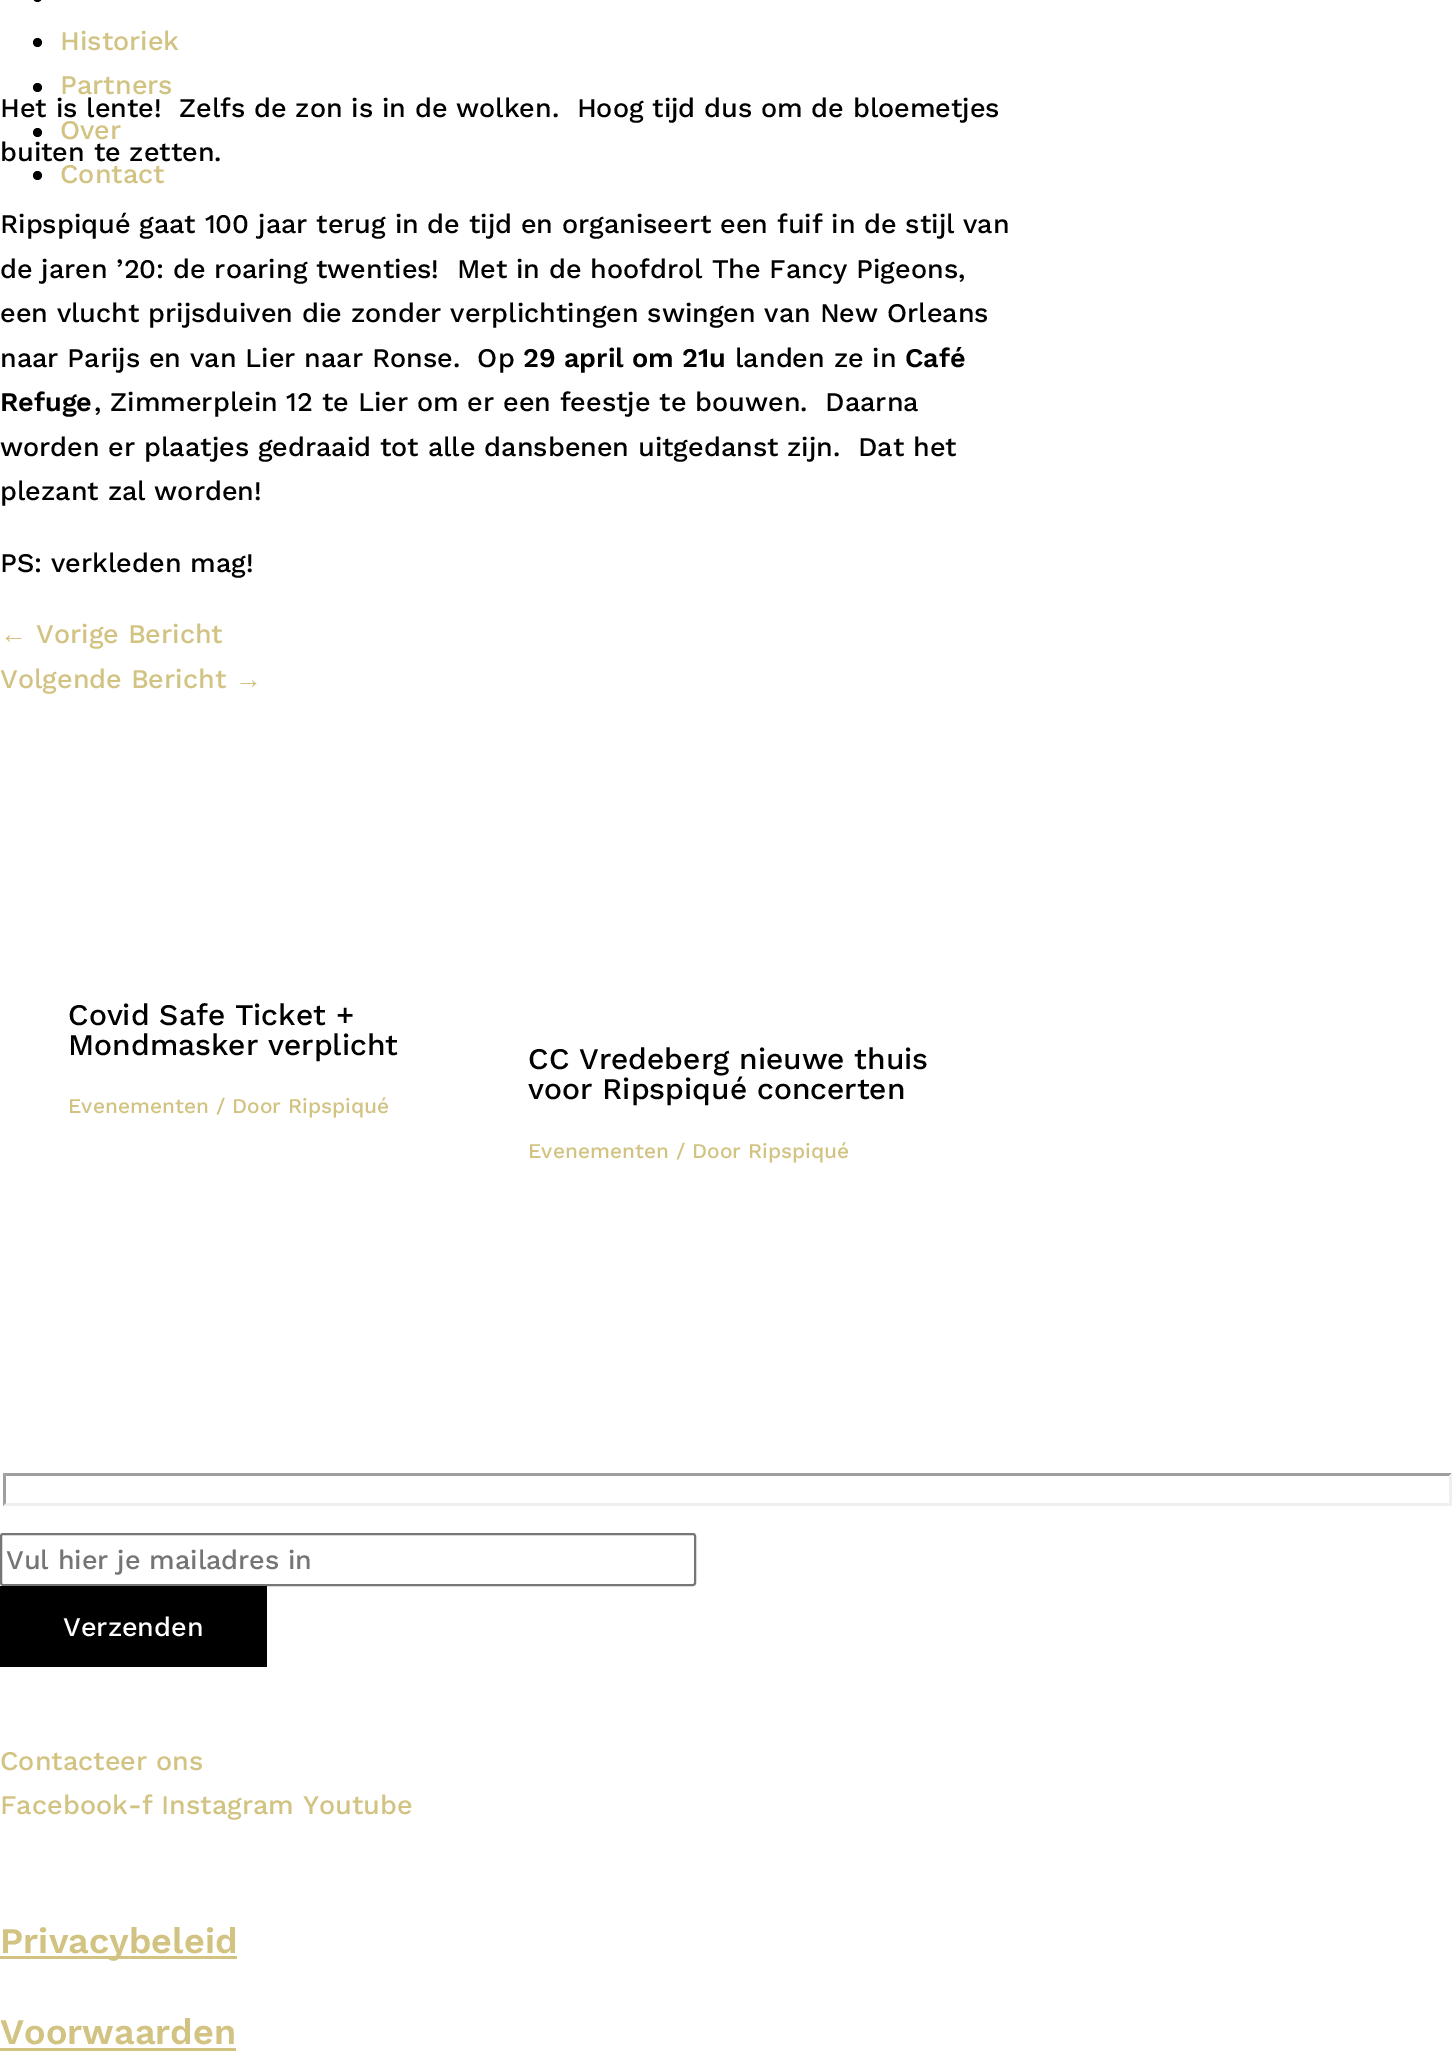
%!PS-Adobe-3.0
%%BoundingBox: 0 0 1455 2062
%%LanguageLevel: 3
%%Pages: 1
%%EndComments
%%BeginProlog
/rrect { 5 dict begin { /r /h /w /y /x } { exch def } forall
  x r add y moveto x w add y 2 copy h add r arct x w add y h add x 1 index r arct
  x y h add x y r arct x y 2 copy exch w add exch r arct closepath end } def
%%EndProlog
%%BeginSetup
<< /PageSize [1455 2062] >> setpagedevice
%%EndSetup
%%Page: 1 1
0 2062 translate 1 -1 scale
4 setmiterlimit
1 setgray
0 0 1455 2062 rectfill
0 setgray
33 -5 9 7 4.5 rrect fill
newpath 37.5 42.5 4.5 0 360 arc closepath fill
newpath 37.5 87.5 4.5 0 360 arc closepath fill
newpath 37.5 132.5 4.5 0 360 arc closepath fill
newpath 37.5 175.5 4.5 0 360 arc closepath fill
0.624 setgray
newpath 3 1473 moveto 1452 1473 lineto 1449 1476 lineto 6 1476 lineto closepath fill
0.937 setgray
newpath 1452 1473 moveto 1452 1506 lineto 1449 1503 lineto 1449 1476 lineto closepath fill
newpath 1452 1506 moveto 3 1506 lineto 6 1503 lineto 1449 1503 lineto closepath fill
0.624 setgray
newpath 3 1506 moveto 3 1473 lineto 6 1476 lineto 6 1503 lineto closepath fill
0.463 setgray
2 setlinewidth
1 1534 694 51 2 rrect stroke
0 setgray
0 1586 267 81 rectfill
0.824 0.765 0.51 setrgbcolor
0 1956 237 3 rectfill
0 2048 236 3 rectfill
/WorkSans-Medium [27 0 0 -27 0 0] selectfont
60 50 moveto (Historiek) show
60 94 moveto (Partners) show
60 139 moveto (Over) show
60 183 moveto (Contact) show
0 setgray
0 117 moveto (Het is lente!  Zelfs de zon is in de wolken.  Hoog tijd dus om de bloemetjes) show
0 161 moveto (buiten te zetten.) show
0 233 moveto (Ripspiqué gaat 100 jaar terug in de tijd en organiseert een fuif in de stijl van) show
0 278 moveto (de jaren ’20: de roaring twenties!  Met in de hoofdrol The Fancy Pigeons,) show
0 322 moveto (een vlucht prijsduiven die zonder verplichtingen swingen van New Orleans) show
0 367 moveto (naar Parijs en van Lier naar Ronse.  Op) show
/WorkSans-SemiBold [27 0 0 -27 0 0] selectfont
523 367 moveto (29 april om 21u) show
/WorkSans-Medium [27 0 0 -27 0 0] selectfont
735 367 moveto (landen ze in) show
/WorkSans-SemiBold [27 0 0 -27 0 0] selectfont
905 367 moveto (Café) show
0 411 moveto (Refuge) show
/WorkSans-Medium [27 0 0 -27 0 0] selectfont
94 411 moveto (, Zimmerplein 12 te Lier om er een feestje te bouwen.  Daarna) show
0 456 moveto (worden er plaatjes gedraaid tot alle dansbenen uitgedanst zijn.  Dat het) show
0 500 moveto (plezant zal worden!) show
0 572 moveto (PS: verkleden mag!) show
/LiberationSans-Regular [27 0 0 -27 0 0] selectfont
0.824 0.765 0.51 setrgbcolor
0 643 moveto (←) show
/WorkSans-Medium [27 0 0 -27 0 0] selectfont
36 643 moveto (Vorige Bericht) show
0 688 moveto (Volgende Bericht) show
/LiberationSans-Regular [27 0 0 -27 0 0] selectfont
235 688 moveto (→) show
/WorkSans-Medium [30 0 0 -30 0 0] selectfont
0 setgray
68 1025 moveto (Covid Safe Ticket +) show
68 1055 moveto (Mondmasker verplicht) show
/WorkSans-Medium [21 0 0 -21 0 0] selectfont
0.824 0.765 0.51 setrgbcolor
68 1113 moveto (Evenementen / Door Ripspiqué) show
/WorkSans-Medium [30 0 0 -30 0 0] selectfont
0 setgray
528 1069 moveto (CC Vredeberg nieuwe thuis) show
528 1099 moveto (voor Ripspiqué concerten) show
/WorkSans-Medium [21 0 0 -21 0 0] selectfont
0.824 0.765 0.51 setrgbcolor
528 1158 moveto (Evenementen / Door Ripspiqué) show
/WorkSans-Medium [27 0 0 -27 0 0] selectfont
0.459 setgray
6 1569 moveto (Vul hier je mailadres in) show
1 setgray
63 1636 moveto (Verzenden) show
0.824 0.765 0.51 setrgbcolor
0 1770 moveto (Contacteer ons) show
0 1814 moveto (Facebook-f Instagram Youtube) show
/WorkSans-SemiBold [36 0 0 -36 0 0] selectfont
0 1953 moveto (Privacybeleid) show
0 2044 moveto (Voorwaarden) show
showpage
%%EOF
